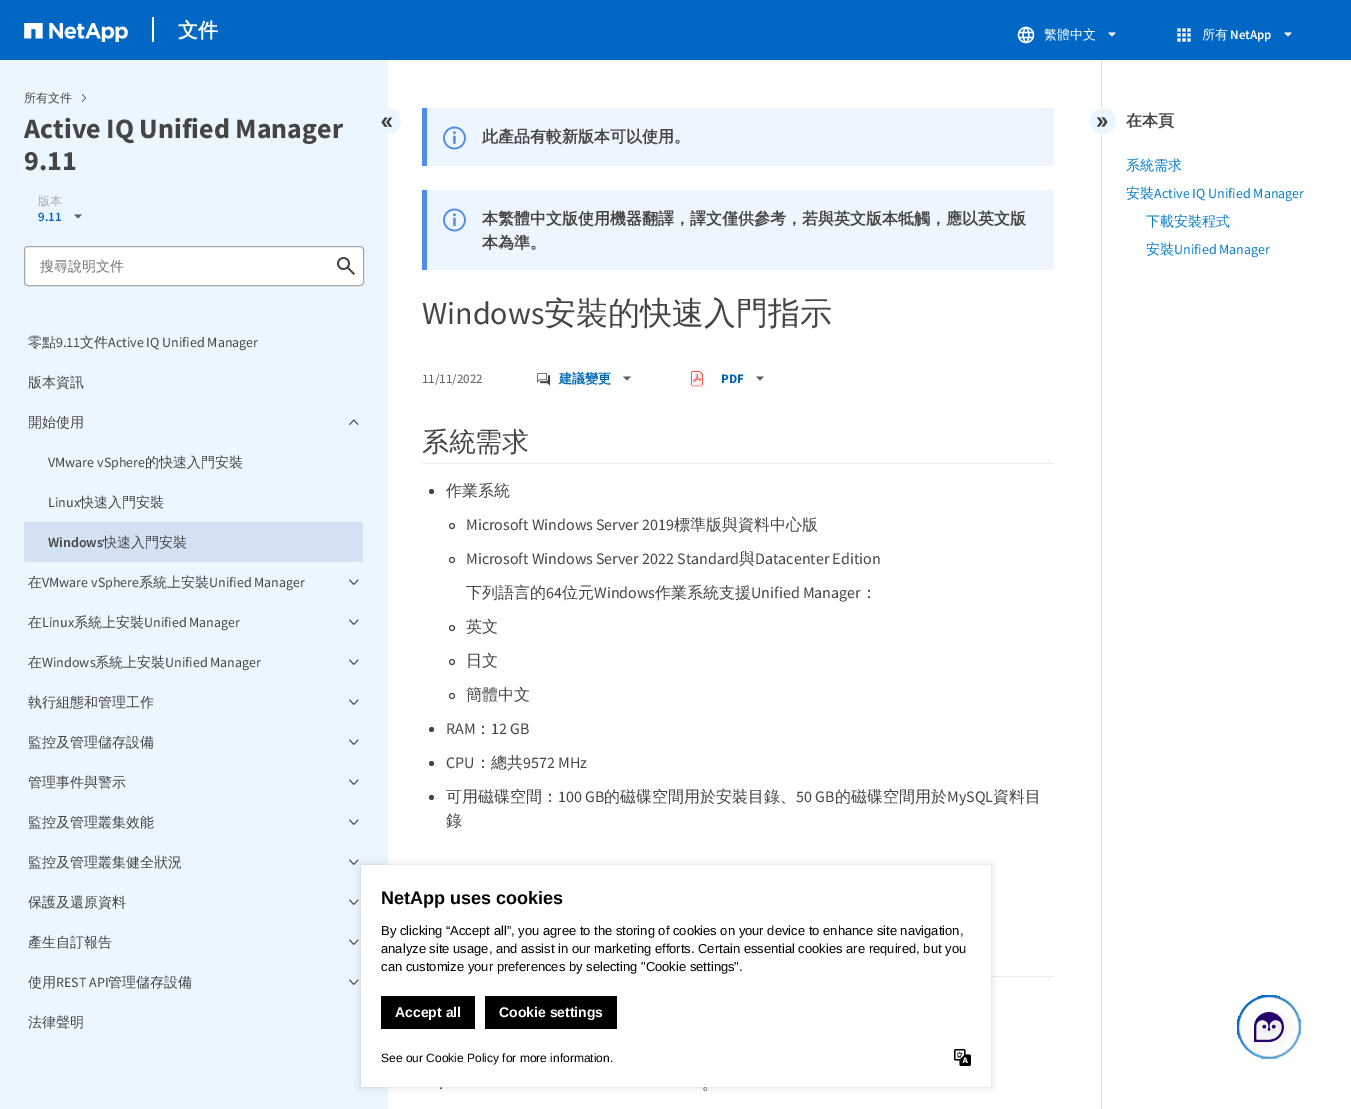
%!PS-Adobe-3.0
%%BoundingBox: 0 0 1351 1109
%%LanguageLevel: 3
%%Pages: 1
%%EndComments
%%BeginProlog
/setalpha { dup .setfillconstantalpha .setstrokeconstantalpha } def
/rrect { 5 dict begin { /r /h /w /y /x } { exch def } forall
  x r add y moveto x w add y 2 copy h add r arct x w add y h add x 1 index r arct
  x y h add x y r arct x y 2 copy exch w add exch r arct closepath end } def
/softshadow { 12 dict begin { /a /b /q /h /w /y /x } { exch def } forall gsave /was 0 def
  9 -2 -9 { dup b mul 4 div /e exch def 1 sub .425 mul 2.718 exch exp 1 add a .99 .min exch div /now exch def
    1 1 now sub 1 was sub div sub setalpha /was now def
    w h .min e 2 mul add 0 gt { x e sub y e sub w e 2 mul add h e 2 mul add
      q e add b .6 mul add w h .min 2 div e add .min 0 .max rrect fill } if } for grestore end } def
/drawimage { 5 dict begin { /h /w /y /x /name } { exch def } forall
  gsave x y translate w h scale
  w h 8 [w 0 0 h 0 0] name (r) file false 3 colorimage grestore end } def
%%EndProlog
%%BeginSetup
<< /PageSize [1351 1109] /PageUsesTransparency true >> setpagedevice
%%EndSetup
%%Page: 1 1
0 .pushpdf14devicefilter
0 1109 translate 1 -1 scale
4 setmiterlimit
1 setgray
0 0 1351 1109 rectfill
0 0.404 0.773 setrgbcolor
0 0 1351 60 rectfill
(images/1.raw) 24 23 104 19 drawimage
1 setgray
152 17 2 25 rectfill
(images/2.raw) 1017 26 18 18 drawimage
0.992 setgray
newpath 1112 36.5 moveto 1108 32.5 lineto 1116 32.5 lineto closepath fill
(images/3.raw) 1177 28 14 14 drawimage
newpath 1288 36.5 moveto 1284 32.5 lineto 1292 32.5 lineto closepath fill
0.925 0.965 1 setrgbcolor
0 60 388 1049 rectfill
(images/4.raw) 82 94 4 8 drawimage
newpath 388 121 13 0 360 arc closepath fill
(images/5.raw) 381 117 12 10 drawimage
0.369 setgray
newpath 78 218.5 moveto 74 214.5 lineto 82 214.5 lineto closepath fill
1 setgray
24.5 246.5 339 39 3.5 rrect gsave fill grestore
0.655 setgray
stroke
(images/6.raw) 337 257 18 18 drawimage
(images/7.raw) 349 419 10 6 drawimage
0.824 0.886 0.953 setrgbcolor
24 522 339 40 rectfill
(images/8.raw) 349 579 10 6 drawimage
(images/8.raw) 349 619 10 6 drawimage
(images/8.raw) 349 659 10 6 drawimage
(images/8.raw) 349 699 10 6 drawimage
(images/8.raw) 349 739 10 6 drawimage
(images/8.raw) 349 779 10 6 drawimage
(images/8.raw) 349 819 10 6 drawimage
(images/8.raw) 349 859 10 6 drawimage
(images/8.raw) 349 899 10 6 drawimage
(images/8.raw) 349 939 10 6 drawimage
(images/8.raw) 349 979 10 6 drawimage
0.929 0.965 1 setrgbcolor
427 108 627 58 rectfill
0.318 0.545 0.925 setrgbcolor
422 108 5 58 rectfill
(images/9.raw) 443 126 23 24 drawimage
0.929 0.965 1 setrgbcolor
427 190 627 80 rectfill
0.318 0.545 0.925 setrgbcolor
422 190 5 80 rectfill
(images/9.raw) 443 208 23 24 drawimage
(images/10.raw) 537 373 13 13 drawimage
0.369 setgray
newpath 627 380.5 moveto 623 376.5 lineto 631 376.5 lineto closepath fill
(images/11.raw) 691 371 12 16 drawimage
newpath 760 380.5 moveto 756 376.5 lineto 764 376.5 lineto closepath fill
0.918 0.925 0.937 setrgbcolor
422 463 632 1 rectfill
0.271 setgray
newpath 431.5 491.5 2.5 0 360 arc closepath fill
newpath 452 526 2.5 0 360 arc closepath stroke
newpath 452 560 2.5 0 360 arc closepath stroke
newpath 452 628 2.5 0 360 arc closepath stroke
newpath 452 662 2.5 0 360 arc closepath stroke
newpath 452 696 2.5 0 360 arc closepath stroke
newpath 431.5 729.5 2.5 0 360 arc closepath fill
newpath 431.5 763.5 2.5 0 360 arc closepath fill
newpath 431.5 797.5 2.5 0 360 arc closepath fill
0.918 0.925 0.937 setrgbcolor
991 976 63 1 rectfill
0.878 setgray
1101 60 1 1049 rectfill
0.925 0.965 1 setrgbcolor
newpath 1103 121 13 0 360 arc closepath fill
(images/12.raw) 1096 117 12 10 drawimage
gsave newpath 1269 1027 32 0 360 arc closepath clip newpath
<< /ShadingType 2 /ColorSpace /DeviceRGB /Coords [1237 995 1301 1059] /Extend [true true] /Function << /FunctionType 3 /Domain [0 1] /Functions [<< /FunctionType 2 /Domain [0 1] /C0 [0 0.404 0.773] /C1 [0 0.404 0.773] /N 1 >> << /FunctionType 2 /Domain [0 1] /C0 [0 0.404 0.773] /C1 [0.478 0.765 0.98] /N 1 >> << /FunctionType 2 /Domain [0 1] /C0 [0.478 0.765 0.98] /C1 [0.478 0.765 0.98] /N 1 >>] /Bounds [0.18 0.89] /Encode [0 1 0 1 0 1] >> >> shfill grestore
(images/13.raw) 1239 997 61 61 drawimage
0 setgray
361 865 630 222 0 4 0.15 softshadow
1 setgray
361 865 630 222 rectfill
0 setgray
381 996 94 33 rectfill
485 996 132 33 rectfill
(images/14.raw) 954 1049 17 17 drawimage
/WenQuanYiZenHei-Bold [20 0 0 -20 0 0] selectfont
1 setgray
178 37 moveto (文件) show
/WenQuanYiZenHei-Medium [13 0 0 -13 0 0] selectfont
1044 39 moveto (繁體中文) show
1202 39 moveto (所有) show
/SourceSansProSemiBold-SemiBold [13 0 0 -13 0 0] selectfont
1230 39 moveto (NetApp) show
/WenQuanYiZenHei-Medium [12 0 0 -12 0 0] selectfont
0.271 setgray
24 102 moveto (所有文件) show
/SourceSansPro-Bold [28 0 0 -28 0 0] selectfont
24 138 moveto (Active IQ Unified Manager) show
24 170 moveto (9.11) show
/WenQuanYiZenHei-Medium [12 0 0 -12 0 0] selectfont
0.655 setgray
38 205 moveto (版本) show
/SourceSansProSemiBold-SemiBold [13 0 0 -13 0 0] selectfont
0 0.404 0.773 setrgbcolor
38 221 moveto (9.11) show
/WenQuanYiZenHei-Medium [14 0 0 -14 0 0] selectfont
0.459 setgray
40 271 moveto (搜尋說明文件) show
0.271 setgray
28 347 moveto (零點) show
/SourceSansPro-Regular [14 0 0 -14 0 0] selectfont
56 347 moveto (9.11) show
/WenQuanYiZenHei-Medium [14 0 0 -14 0 0] selectfont
80 347 moveto (文件) show
/SourceSansPro-Regular [14 0 0 -14 0 0] selectfont
108 347 moveto (Active IQ Unified Manager) show
/WenQuanYiZenHei-Medium [14 0 0 -14 0 0] selectfont
28 387 moveto (版本資訊) show
28 427 moveto (開始使用) show
/SourceSansPro-Regular [14 0 0 -14 0 0] selectfont
48 467 moveto (VMware vSphere) show
/WenQuanYiZenHei-Medium [14 0 0 -14 0 0] selectfont
145 467 moveto (的快速入門安裝) show
/SourceSansPro-Regular [14 0 0 -14 0 0] selectfont
48 507 moveto (Linux) show
/WenQuanYiZenHei-Medium [14 0 0 -14 0 0] selectfont
80 507 moveto (快速入門安裝) show
/SourceSansProSemiBold-SemiBold [14 0 0 -14 0 0] selectfont
48 547 moveto (Windows) show
/WenQuanYiZenHei-Medium [14 0 0 -14 0 0] selectfont
103 547 moveto (快速入門安裝) show
28 587 moveto (在) show
/SourceSansPro-Regular [14 0 0 -14 0 0] selectfont
42 587 moveto (VMware vSphere) show
/WenQuanYiZenHei-Medium [14 0 0 -14 0 0] selectfont
139 587 moveto (系統上安裝) show
/SourceSansPro-Regular [14 0 0 -14 0 0] selectfont
209 587 moveto (Unified Manager) show
/WenQuanYiZenHei-Medium [14 0 0 -14 0 0] selectfont
28 627 moveto (在) show
/SourceSansPro-Regular [14 0 0 -14 0 0] selectfont
42 627 moveto (Linux) show
/WenQuanYiZenHei-Medium [14 0 0 -14 0 0] selectfont
74 627 moveto (系統上安裝) show
/SourceSansPro-Regular [14 0 0 -14 0 0] selectfont
144 627 moveto (Unified Manager) show
/WenQuanYiZenHei-Medium [14 0 0 -14 0 0] selectfont
28 667 moveto (在) show
/SourceSansPro-Regular [14 0 0 -14 0 0] selectfont
42 667 moveto (Windows) show
/WenQuanYiZenHei-Medium [14 0 0 -14 0 0] selectfont
95 667 moveto (系統上安裝) show
/SourceSansPro-Regular [14 0 0 -14 0 0] selectfont
165 667 moveto (Unified Manager) show
/WenQuanYiZenHei-Medium [14 0 0 -14 0 0] selectfont
28 707 moveto (執行組態和管理工作) show
28 747 moveto (監控及管理儲存設備) show
28 787 moveto (管理事件與警示) show
28 827 moveto (監控及管理叢集效能) show
28 867 moveto (監控及管理叢集健全狀況) show
28 907 moveto (保護及還原資料) show
28 947 moveto (產生自訂報告) show
28 987 moveto (使用) show
/SourceSansPro-Regular [14 0 0 -14 0 0] selectfont
56 987 moveto (REST API) show
/WenQuanYiZenHei-Medium [14 0 0 -14 0 0] selectfont
108 987 moveto (管理儲存設備) show
28 1027 moveto (法律聲明) show
/WenQuanYiZenHei-Bold [16 0 0 -16 0 0] selectfont
482 142 moveto (此產品有較新版本可以使用。) show
482 224 moveto (本繁體中文版使用機器翻譯，譯文僅供參考，若與英文版本牴觸，應以英文版) show
482 248 moveto (本為準。) show
/SourceSansPro-Regular [32 0 0 -32 0 0] selectfont
422 324 moveto (Windows) show
/WenQuanYiZenHei-Medium [32 0 0 -32 0 0] selectfont
544 324 moveto (安裝的快速入門指示) show
/SourceSansPro-Regular [13 0 0 -13 0 0] selectfont
0.369 setgray
422 383 moveto (11/11/2022) show
/WenQuanYiZenHei-Bold [13 0 0 -13 0 0] selectfont
0 0.396 0.702 setrgbcolor
559 383 moveto (建議變更) show
/SourceSansPro-Bold [13 0 0 -13 0 0] selectfont
721 383 moveto (PDF) show
/WenQuanYiZenHei-Medium [27 0 0 -27 0 0] selectfont
0.271 setgray
422 451 moveto -0.5 0 (系統需求) ashow
/WenQuanYiZenHei-Medium [16 0 0 -16 0 0] selectfont
446 496 moveto (作業系統) show
/SourceSansPro-Regular [16 0 0 -16 0 0] selectfont
466 530 moveto (Microsoft Windows Server 2019) show
/WenQuanYiZenHei-Medium [16 0 0 -16 0 0] selectfont
674 530 moveto (標準版與資料中心版) show
/SourceSansPro-Regular [16 0 0 -16 0 0] selectfont
466 564 moveto (Microsoft Windows Server 2022 Standard) show
/WenQuanYiZenHei-Medium [16 0 0 -16 0 0] selectfont
739 564 moveto (與) show
/SourceSansPro-Regular [16 0 0 -16 0 0] selectfont
755 564 moveto (Datacenter Edition) show
/WenQuanYiZenHei-Medium [16 0 0 -16 0 0] selectfont
466 598 moveto (下列語言的) show
/SourceSansPro-Regular [16 0 0 -16 0 0] selectfont
546 598 moveto (64) show
/WenQuanYiZenHei-Medium [16 0 0 -16 0 0] selectfont
562 598 moveto (位元) show
/SourceSansPro-Regular [16 0 0 -16 0 0] selectfont
594 598 moveto (Windows) show
/WenQuanYiZenHei-Medium [16 0 0 -16 0 0] selectfont
655 598 moveto (作業系統支援) show
/SourceSansPro-Regular [16 0 0 -16 0 0] selectfont
751 598 moveto (Unified Manager) show
/WenQuanYiZenHei-Medium [16 0 0 -16 0 0] selectfont
861 598 moveto (：) show
466 632 moveto (英文) show
466 666 moveto (日文) show
466 700 moveto (簡體中文) show
/SourceSansPro-Regular [16 0 0 -16 0 0] selectfont
446 734 moveto (RAM) show
/WenQuanYiZenHei-Medium [16 0 0 -16 0 0] selectfont
475 734 moveto (：) show
/SourceSansPro-Regular [16 0 0 -16 0 0] selectfont
491 734 moveto (12 GB) show
446 768 moveto (CPU) show
/WenQuanYiZenHei-Medium [16 0 0 -16 0 0] selectfont
475 768 moveto (：總共) show
/SourceSansPro-Regular [16 0 0 -16 0 0] selectfont
523 768 moveto (9572 MHz) show
/WenQuanYiZenHei-Medium [16 0 0 -16 0 0] selectfont
446 802 moveto (可用磁碟空間：) show
/SourceSansPro-Regular [16 0 0 -16 0 0] selectfont
558 802 moveto (100 GB) show
/WenQuanYiZenHei-Medium [16 0 0 -16 0 0] selectfont
604 802 moveto (的磁碟空間用於安裝目錄、) show
/SourceSansPro-Regular [16 0 0 -16 0 0] selectfont
796 802 moveto (50 GB) show
/WenQuanYiZenHei-Medium [16 0 0 -16 0 0] selectfont
835 802 moveto (的磁碟空間用於) show
/SourceSansPro-Regular [16 0 0 -16 0 0] selectfont
947 802 moveto (MySQL) show
/WenQuanYiZenHei-Medium [16 0 0 -16 0 0] selectfont
993 802 moveto (資料目) show
446 826 moveto (錄) show
/SourceSansPro-Regular [16 0 0 -16 0 0] selectfont
439 1089 moveto (.) show
/WenQuanYiZenHei-Medium [16 0 0 -16 0 0] selectfont
702 1089 moveto (。) show
/WenQuanYiZenHei-Bold [16 0 0 -16 0 0] selectfont
1126 126 moveto (在本頁) show
/WenQuanYiZenHei-Medium [14 0 0 -14 0 0] selectfont
0.024 0.494 0.773 setrgbcolor
1126 170 moveto (系統需求) show
1126 198 moveto (安裝) show
/SourceSansPro-Regular [14 0 0 -14 0 0] selectfont
1154 198 moveto (Active IQ Unified Manager) show
/WenQuanYiZenHei-Medium [14 0 0 -14 0 0] selectfont
1146 226 moveto (下載安裝程式) show
1146 254 moveto (安裝) show
/SourceSansPro-Regular [14 0 0 -14 0 0] selectfont
1174 254 moveto (Unified Manager) show
/LiberationSans-Bold [18 0 0 -18 0 0] selectfont
0 setgray
381 904 moveto (NetApp uses cookies) show
/LiberationSans-Regular [13 0 0 -13 0 0] selectfont
381 935 moveto (By clicking “Accept all”, you agree to the storing of cookies on your device to enhance site navigation,) show
381 953 moveto (analyze site usage, and assist in our marketing efforts. Certain essential cookies are required, but you) show
381 971 moveto (can customize your preferences by selecting "Cookie settings".) show
/LiberationSans-Bold [14 0 0 -14 0 0] selectfont
1 setgray
395 1017 moveto (Accept all) show
499 1017 moveto (Cookie settings) show
/LiberationSans-Regular [12 0 0 -12 0 0] selectfont
0 setgray
381 1062 moveto (See our Cookie Policy for more information.) show
.poppdf14devicefilter showpage
%%EOF
